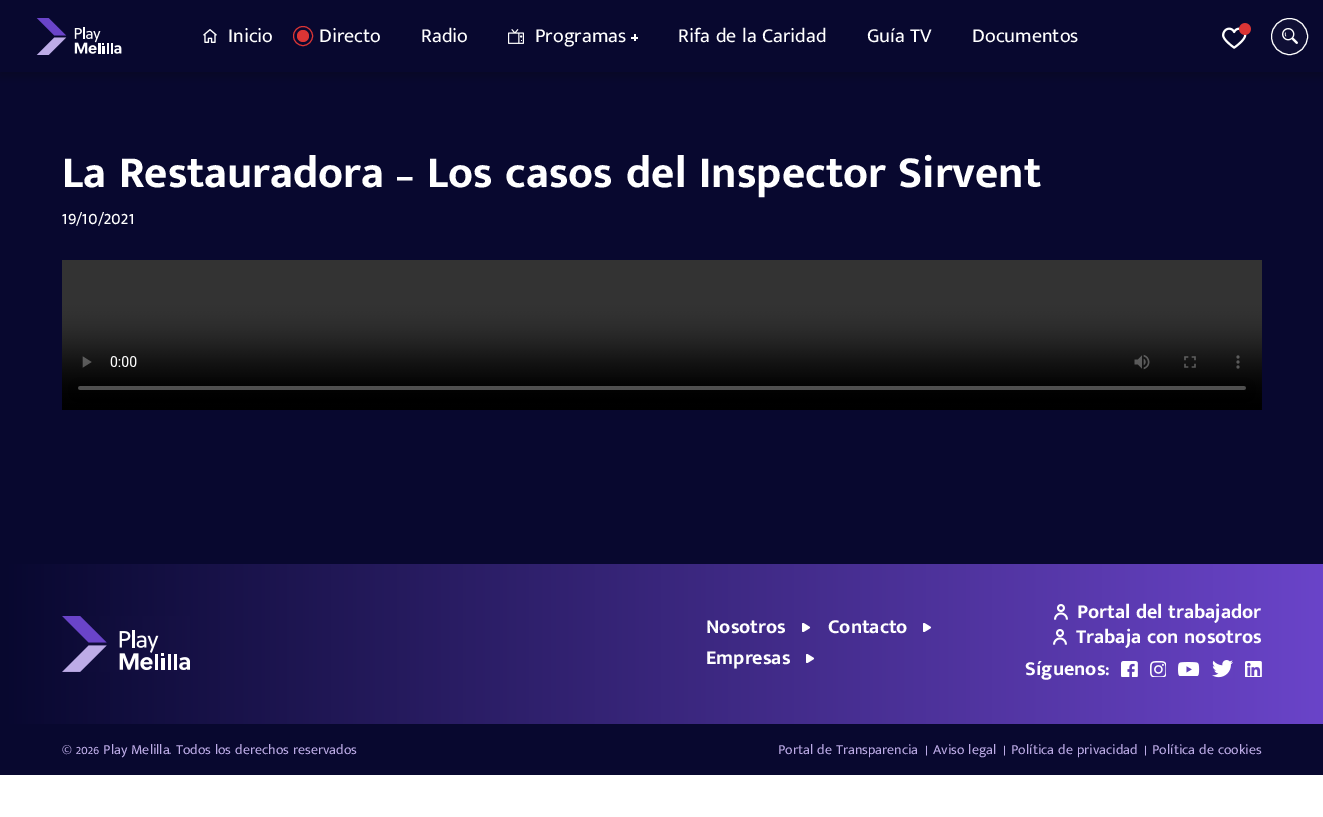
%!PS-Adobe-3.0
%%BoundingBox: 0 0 1323 817
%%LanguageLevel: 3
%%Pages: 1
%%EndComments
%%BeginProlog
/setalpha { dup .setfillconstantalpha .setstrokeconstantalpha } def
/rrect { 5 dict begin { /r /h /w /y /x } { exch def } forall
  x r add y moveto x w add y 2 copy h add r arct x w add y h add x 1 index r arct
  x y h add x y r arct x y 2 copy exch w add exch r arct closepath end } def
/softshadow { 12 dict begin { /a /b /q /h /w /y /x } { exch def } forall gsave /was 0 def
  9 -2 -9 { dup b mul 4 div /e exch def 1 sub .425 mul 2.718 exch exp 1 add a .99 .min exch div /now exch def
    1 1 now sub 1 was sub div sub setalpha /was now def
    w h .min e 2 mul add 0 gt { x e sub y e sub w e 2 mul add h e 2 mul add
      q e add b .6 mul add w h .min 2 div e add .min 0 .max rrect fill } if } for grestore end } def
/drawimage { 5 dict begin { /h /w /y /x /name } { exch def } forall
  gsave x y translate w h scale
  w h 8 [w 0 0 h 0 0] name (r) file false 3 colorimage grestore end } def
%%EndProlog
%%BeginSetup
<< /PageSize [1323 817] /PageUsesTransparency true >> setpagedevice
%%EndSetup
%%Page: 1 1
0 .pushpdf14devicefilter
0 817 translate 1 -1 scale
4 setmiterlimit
1 setgray
0 0 1323 817 rectfill
0.031 0.031 0.184 setrgbcolor
0 72 1323 492 rectfill
0 setgray
0 3 1323 72 0 5 0.25 softshadow
0.031 0.031 0.184 setrgbcolor
0 0 1323 72 rectfill
(images/1.raw) 36 18 86 37 drawimage
(images/2.raw) 203 29 14 14 drawimage
0.859 0.208 0.208 setrgbcolor
newpath 303 36 9.5 0 360 arc closepath stroke
newpath 303 36 6 0 360 arc closepath fill
(images/3.raw) 508 29 16 15 drawimage
1 setgray
634 34 2 7 rectfill
631 37 7 2 rectfill
(images/4.raw) 1222 23 29 26 drawimage
0.059 0.059 0.208 setrgbcolor
newpath 1289.5 36.5 18.5 0 360 arc closepath fill
(images/5.raw) 1282 28 16 16 drawimage
1 setgray
newpath 1289.5 36.5 18 0 360 arc closepath stroke
(images/6.raw) 62 260 1200 150 drawimage
gsave newpath 0 564 moveto 1323 564 lineto 1323 724 lineto 0 724 lineto closepath clip newpath
<< /ShadingType 2 /ColorSpace /DeviceRGB /Coords [0 644 1323 644] /Extend [true true] /Function << /FunctionType 2 /Domain [0 1] /C0 [0.031 0.031 0.184] /C1 [0.416 0.267 0.788] /N 1 >> >> shfill grestore
(images/7.raw) 62 616 128 56 drawimage
(images/8.raw) 802 623 9 9 drawimage
(images/9.raw) 923 623 9 9 drawimage
(images/10.raw) 806 654 9 9 drawimage
(images/11.raw) 1054 604 14 16 drawimage
(images/12.raw) 1053 629 14 16 drawimage
(images/13.raw) 1121 661 17 16 drawimage
(images/14.raw) 1150 661 16 16 drawimage
(images/15.raw) 1178 662 22 14 drawimage
(images/16.raw) 1212 660 21 18 drawimage
(images/17.raw) 1245 661 17 16 drawimage
0.031 0.031 0.184 setrgbcolor
0 724 1323 51 rectfill
/MuktaMalar-Regular [20 0 0 -20 0 0] selectfont
1 setgray
228 42 moveto (Inicio) show
319 42 moveto (Directo) show
421 42 moveto (Radio) show
535 42 moveto (Programas) show
678 42 moveto (Rifa de la Caridad) show
867 42 moveto (Guía TV) show
972 42 moveto (Documentos) show
/MuktaMalar-Bold [45 0 0 -45 0 0] selectfont
62 187 moveto (La Restauradora – Los casos del Inspector Sirvent) show
/MuktaMalar-Regular [20 0 0 -20 0 0] selectfont
62 224 moveto (19/10/2021) show
/MuktaMalar-Bold [20 0 0 -20 0 0] selectfont
706 633 moveto (Nosotros) show
828 633 moveto (Contacto) show
706 664 moveto (Empresas) show
1077 618 moveto (Portal del trabajador) show
1076 643 moveto (Trabaja con nosotros) show
1025 675 moveto (Síguenos:) show
/MuktaMalar-Regular [14 0 0 -14 0 0] selectfont
0.741 0.675 0.906 setrgbcolor
62 754 moveto (© 2026 Play Melilla. Todos los derechos reservados) show
778 754 moveto (Portal de Transparencia) show
925 754 moveto (|) show
933 754 moveto (Aviso legal) show
1003 754 moveto (|) show
1011 754 moveto (Política de privacidad) show
1144 754 moveto (|) show
1152 754 moveto (Política de cookies) show
.poppdf14devicefilter showpage
%%EOF
